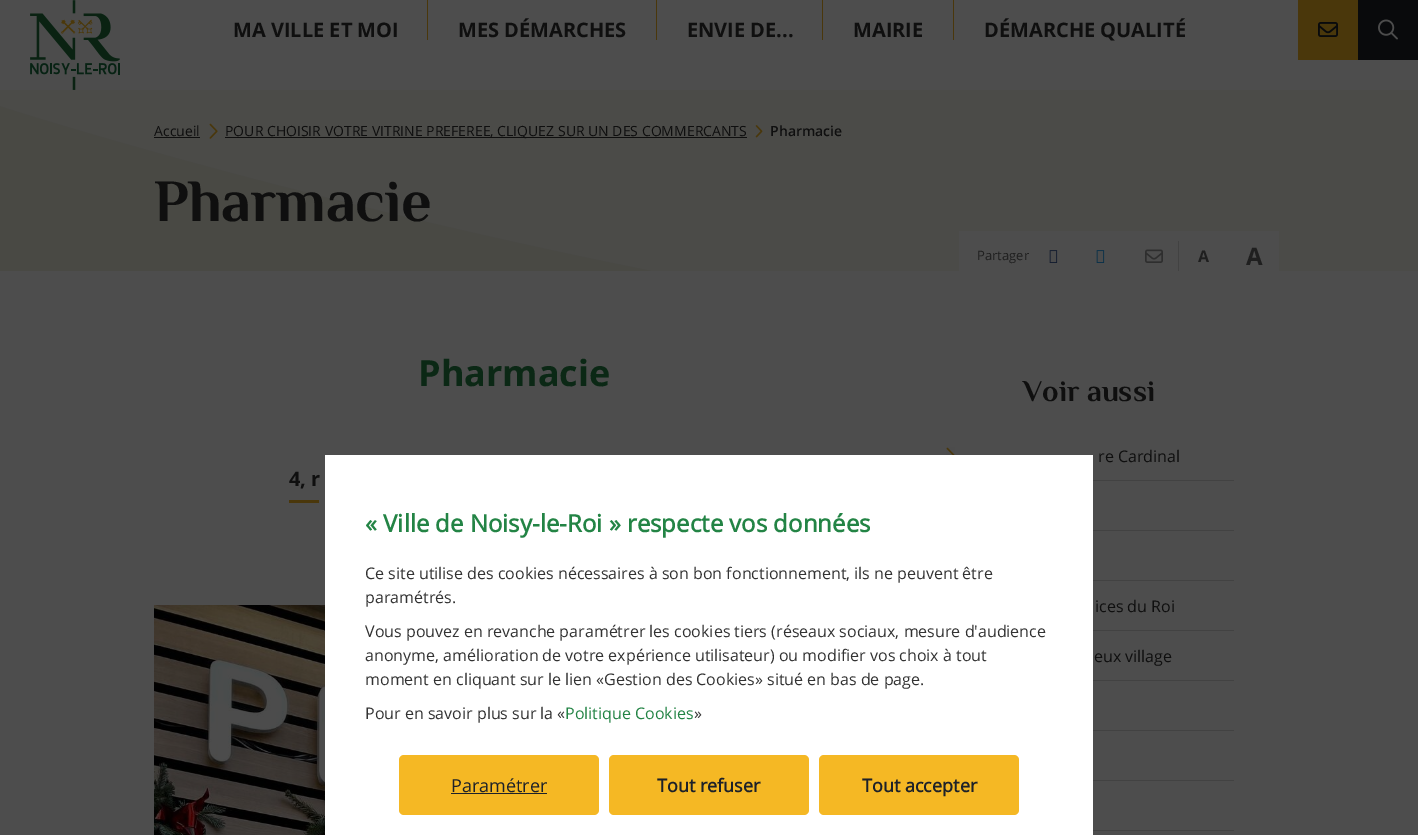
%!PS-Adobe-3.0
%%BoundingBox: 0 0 1418 835
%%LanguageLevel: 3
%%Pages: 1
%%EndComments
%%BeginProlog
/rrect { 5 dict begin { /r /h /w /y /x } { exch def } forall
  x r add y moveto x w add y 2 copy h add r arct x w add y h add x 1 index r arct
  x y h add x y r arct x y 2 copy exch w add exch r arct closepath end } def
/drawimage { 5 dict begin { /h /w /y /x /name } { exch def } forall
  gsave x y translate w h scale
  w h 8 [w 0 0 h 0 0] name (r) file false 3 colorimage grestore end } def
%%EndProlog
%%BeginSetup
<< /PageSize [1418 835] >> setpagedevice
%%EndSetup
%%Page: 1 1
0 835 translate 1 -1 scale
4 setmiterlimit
0.302 setgray
0 0 1418 835 rectfill
(images/1.raw) 30 0 90 90 drawimage
0.29 0.216 0.043 setrgbcolor
427 0 1 40 rectfill
656 0 1 40 rectfill
822 0 1 40 rectfill
953 0 1 40 rectfill
1298 0 60 60 rectfill
(images/2.raw) 1318 22 20 15 drawimage
0.035 0.039 0.047 setrgbcolor
1358 0 60 60 rectfill
(images/3.raw) 1378 19 20 21 drawimage
0.294 0.294 0.282 setrgbcolor
0 90 1418 181 rectfill
(images/4.raw) 0 106 651 165 drawimage
0.059 setgray
154 137 46 1 rectfill
(images/5.raw) 209 123 9 16 drawimage
225 137 522 1 rectfill
(images/6.raw) 755 125 8 13 drawimage
0.302 setgray
959 231 320 40 rectfill
(images/7.raw) 1049 250 9 13 drawimage
(images/8.raw) 1096 250 9 13 drawimage
(images/9.raw) 1145 249 18 14 drawimage
0.259 setgray
1178 241 1 30 rectfill
0.29 0.216 0.043 setrgbcolor
289 500 30 3 rectfill
(images/10.raw) 154 605 171 230 drawimage
0.259 setgray
1093 480 141 1 rectfill
(images/11.raw) 946 447 9 8 drawimage
1093 530 141 1 rectfill
1093 580 141 1 rectfill
1093 630 141 1 rectfill
1093 680 141 1 rectfill
1093 730 141 1 rectfill
1093 780 141 1 rectfill
1093 830 141 1 rectfill
1 setgray
325 455 768 380 rectfill
0.961 0.722 0.141 setrgbcolor
399 755 200 60 5 rrect fill
0.114 0.129 0.161 setrgbcolor
451 793 96 1 rectfill
0.961 0.722 0.141 setrgbcolor
609 755 200 60 5 rrect fill
819 755 200 60 5 rrect fill
/OpenSans-Bold [20 0 0 -20 0 0] selectfont
0.059 setgray
233 37 moveto (MA VILLE ET MOI) show
458 37 moveto (MES DÉMARCHES) show
687 37 moveto (ENVIE DE...) show
853 37 moveto (MAIRIE) show
984 37 moveto (DÉMARCHE QUALITÉ) show
/OpenSans-Regular [14 0 0 -14 0 0] selectfont
154 136 moveto (Accueil) show
225 136 moveto (POUR CHOISIR VOTRE VITRINE PREFEREE, CLIQUEZ SUR UN DES COMMERCANTS) show
/OpenSans-SemiBold [14 0 0 -14 0 0] selectfont
770 136 moveto (Pharmacie) show
/Philosopher-Bold [60 0 0 -60 0 0] selectfont
154 221 moveto (Pharmacie) show
/OpenSans-Regular [13 0 0 -13 0 0] selectfont
0.122 setgray
977 260 moveto (Partager) show
/OpenSans-Bold [16 0 0 -16 0 0] selectfont
1198 262 moveto (A) show
/OpenSans-Bold [24 0 0 -24 0 0] selectfont
1246 265 moveto (A) show
/OpenSans-Bold [36 0 0 -36 0 0] selectfont
0.043 0.157 0.082 setrgbcolor
418 386 moveto (Pharmacie) show
/OpenSans-Bold [20 0 0 -20 0 0] selectfont
0.059 setgray
289 486 moveto (4, r) show
/Philosopher-Bold [30 0 0 -30 0 0] selectfont
1023 401 moveto (Voir aussi) show
/OpenSans-Regular [16 0 0 -16 0 0] selectfont
1098 462 moveto (re Cardinal) show
1095 612 moveto (ices du Roi) show
1094 662 moveto (eux village) show
/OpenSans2-Bold [24 0 0 -24 0 0] selectfont
0.137 0.518 0.271 setrgbcolor
365 532 moveto (« Ville de Noisy-le-Roi » respecte vos données) show
/OpenSans-Regular [16 0 0 -16 0 0] selectfont
0.2 setgray
365 579 moveto (Ce site utilise des cookies nécessaires à son bon fonctionnement, ils ne peuvent être) show
365 603 moveto (paramétrés.) show
365 637 moveto (Vous pouvez en revanche paramétrer les cookies tiers \(réseaux sociaux, mesure d'audience) show
365 661 moveto (anonyme, amélioration de votre expérience utilisateur\) ou modifier vos choix à tout) show
365 685 moveto (moment en cliquant sur le lien «Gestion des Cookies» situé en bas de page.) show
365 719 moveto (Pour en savoir plus sur la «) show
0.137 0.518 0.271 setrgbcolor
565 719 moveto (Politique Cookies) show
0.2 setgray
694 719 moveto (») show
/OpenSans-Regular [18 0 0 -18 0 0] selectfont
0.114 0.129 0.161 setrgbcolor
451 792 moveto (Paramétrer) show
/OpenSans2-Bold [18 0 0 -18 0 0] selectfont
657 792 moveto (Tout refuser) show
862 792 moveto (Tout accepter) show
showpage
%%EOF
